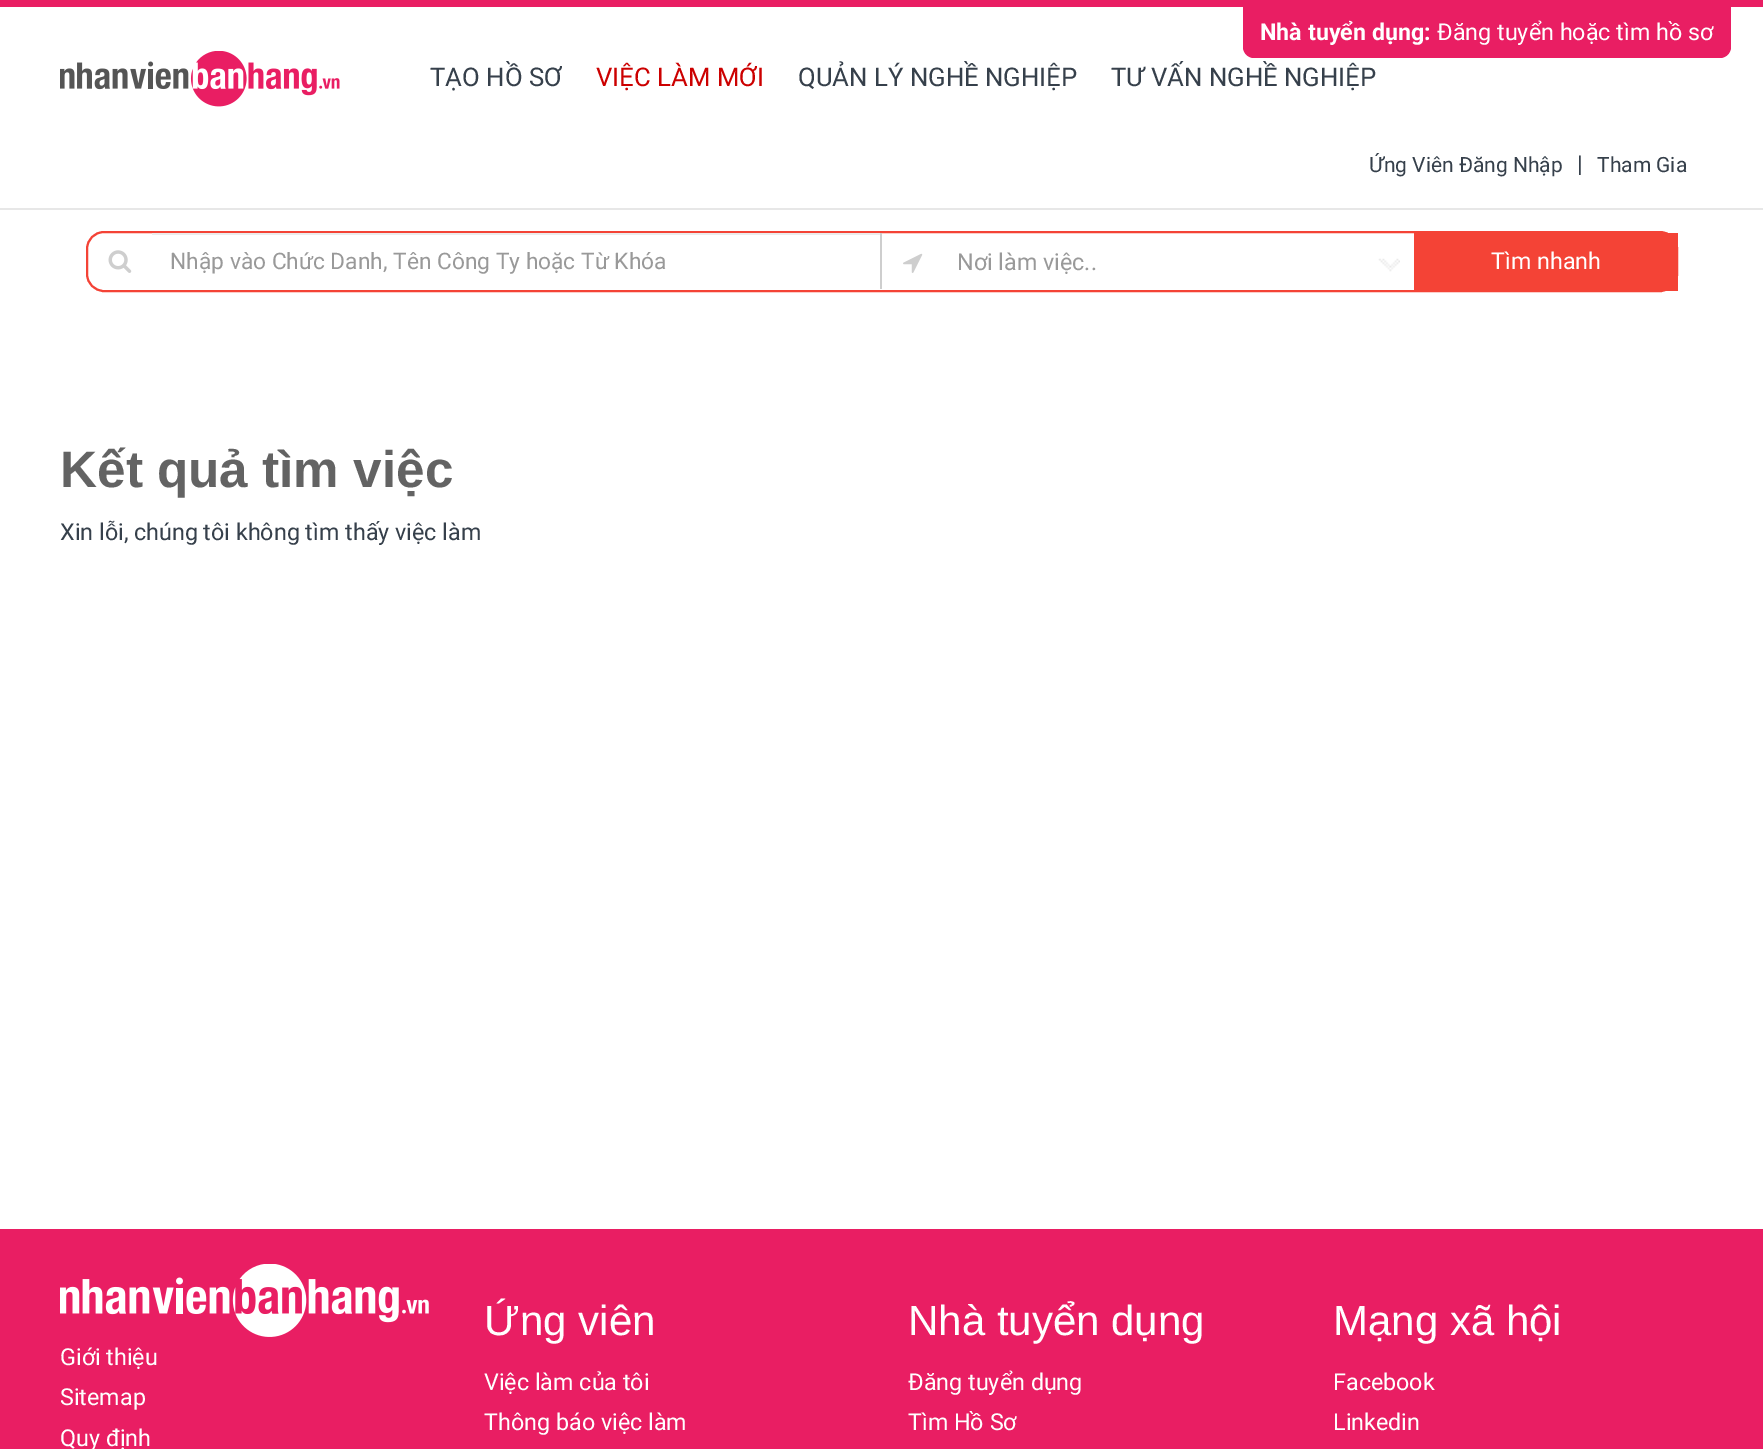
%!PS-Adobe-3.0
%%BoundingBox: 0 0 1763 1449
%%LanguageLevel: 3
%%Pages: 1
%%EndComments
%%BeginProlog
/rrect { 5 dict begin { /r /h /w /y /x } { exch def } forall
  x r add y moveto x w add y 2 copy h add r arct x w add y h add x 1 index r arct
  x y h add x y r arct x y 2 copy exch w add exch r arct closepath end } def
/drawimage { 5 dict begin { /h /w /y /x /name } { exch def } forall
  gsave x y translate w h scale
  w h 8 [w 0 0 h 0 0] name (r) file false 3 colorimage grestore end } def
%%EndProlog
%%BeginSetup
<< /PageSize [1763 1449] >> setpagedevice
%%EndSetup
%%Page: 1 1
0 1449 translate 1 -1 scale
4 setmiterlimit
1 setgray
0 0 1763 1449 rectfill
0.914 0.118 0.388 setrgbcolor
0 0 1763 7 rectfill
0.906 setgray
0 208 1763 2 rectfill
0.914 0.118 0.388 setrgbcolor
newpath 1243 7 moveto 1731 7 lineto 1731 47 lineto 1731 53 1726 58 1720 58 curveto 1254 58 lineto 1248 58 1243 53 1243 47 curveto closepath fill
(images/1.raw) 60 51 280 56 drawimage
0.957 0.263 0.212 setrgbcolor
2 setlinewidth
87 232 1590 59 17 rrect stroke
(images/2.raw) 108 250 24 23 drawimage
0.925 setgray
152 233 728 2 rectfill
0.808 setgray
880 233 2 56 rectfill
(images/3.raw) 903 253 20 20 drawimage
(images/4.raw) 1378 258 22 14 drawimage
0.957 0.263 0.212 setrgbcolor
1414 233 264 58 rectfill
0.914 0.118 0.388 setrgbcolor
0 1229 1763 220 rectfill
(images/5.raw) 60 1264 369 73 drawimage
/Roboto-Bold [23.3 0 0 -23.3 0 0] selectfont
1 setgray
1260 40 moveto (Nhà tuyển dụng:) show
/Roboto-Regular [23.3 0 0 -23.3 0 0] selectfont
1437 40 moveto (Đăng tuyển hoặc tìm hồ sơ) show
/Roboto-Regular [25.75 0 0 -25.75 0 0] selectfont
0.212 0.251 0.294 setrgbcolor
430 86 moveto (TẠO HỒ SƠ) show
0.8 0 0 setrgbcolor
596 86 moveto (VIỆC LÀM MỚI) show
0.212 0.251 0.294 setrgbcolor
798 86 moveto (QUẢN LÝ NGHỀ NGHIỆP) show
1111 86 moveto (TƯ VẤN NGHỀ NGHIỆP) show
/Roboto-Regular [21 0 0 -21 0 0] selectfont
1369 172 moveto (Ứng Viên Đăng Nhập) show
/Roboto-Regular [23.3 0 0 -23.3 0 0] selectfont
1577 172 moveto (|) show
/Roboto-Regular [21 0 0 -21 0 0] selectfont
1597 172 moveto (Tham Gia) show
/Roboto-Regular [22.75 0 0 -22.75 0 0] selectfont
0.6 setgray
170 269 moveto (Nhập vào Chức Danh, Tên Công Ty hoặc Từ Khóa) show
/Roboto-Regular [23.3 0 0 -23.3 0 0] selectfont
957 270 moveto (Nơi làm việc..) show
1 setgray
1491 269 moveto (Tìm nhanh) show
/LiberationSans-Bold [51.25 0 0 -51.25 0 0] selectfont
0.388 setgray
60 487 moveto (Kết quả tìm việc) show
/Roboto-Regular [23.3 0 0 -23.3 0 0] selectfont
0.212 0.251 0.294 setrgbcolor
60 540 moveto (Xin lỗi, chúng tôi không tìm thấy việc làm) show
1 setgray
60 1365 moveto (Giới thiệu) show
60 1405 moveto (Sitemap) show
60 1446 moveto (Quy định) show
/LiberationSans-Regular [42 0 0 -42 0 0] selectfont
484 1335 moveto (Ứng viên) show
/Roboto-Regular [23.3 0 0 -23.3 0 0] selectfont
484 1390 moveto (Việc làm của tôi) show
484 1430 moveto (Thông báo việc làm) show
/LiberationSans-Regular [42 0 0 -42 0 0] selectfont
908 1335 moveto (Nhà tuyển dụng) show
/Roboto-Regular [23.3 0 0 -23.3 0 0] selectfont
908 1390 moveto (Đăng tuyển dụng) show
908 1430 moveto (Tìm Hồ Sơ) show
/LiberationSans-Regular [42 0 0 -42 0 0] selectfont
1333 1335 moveto (Mạng xã hội) show
/Roboto-Regular [23.3 0 0 -23.3 0 0] selectfont
1333 1390 moveto (Facebook) show
1333 1430 moveto (Linkedin) show
showpage
%%EOF
